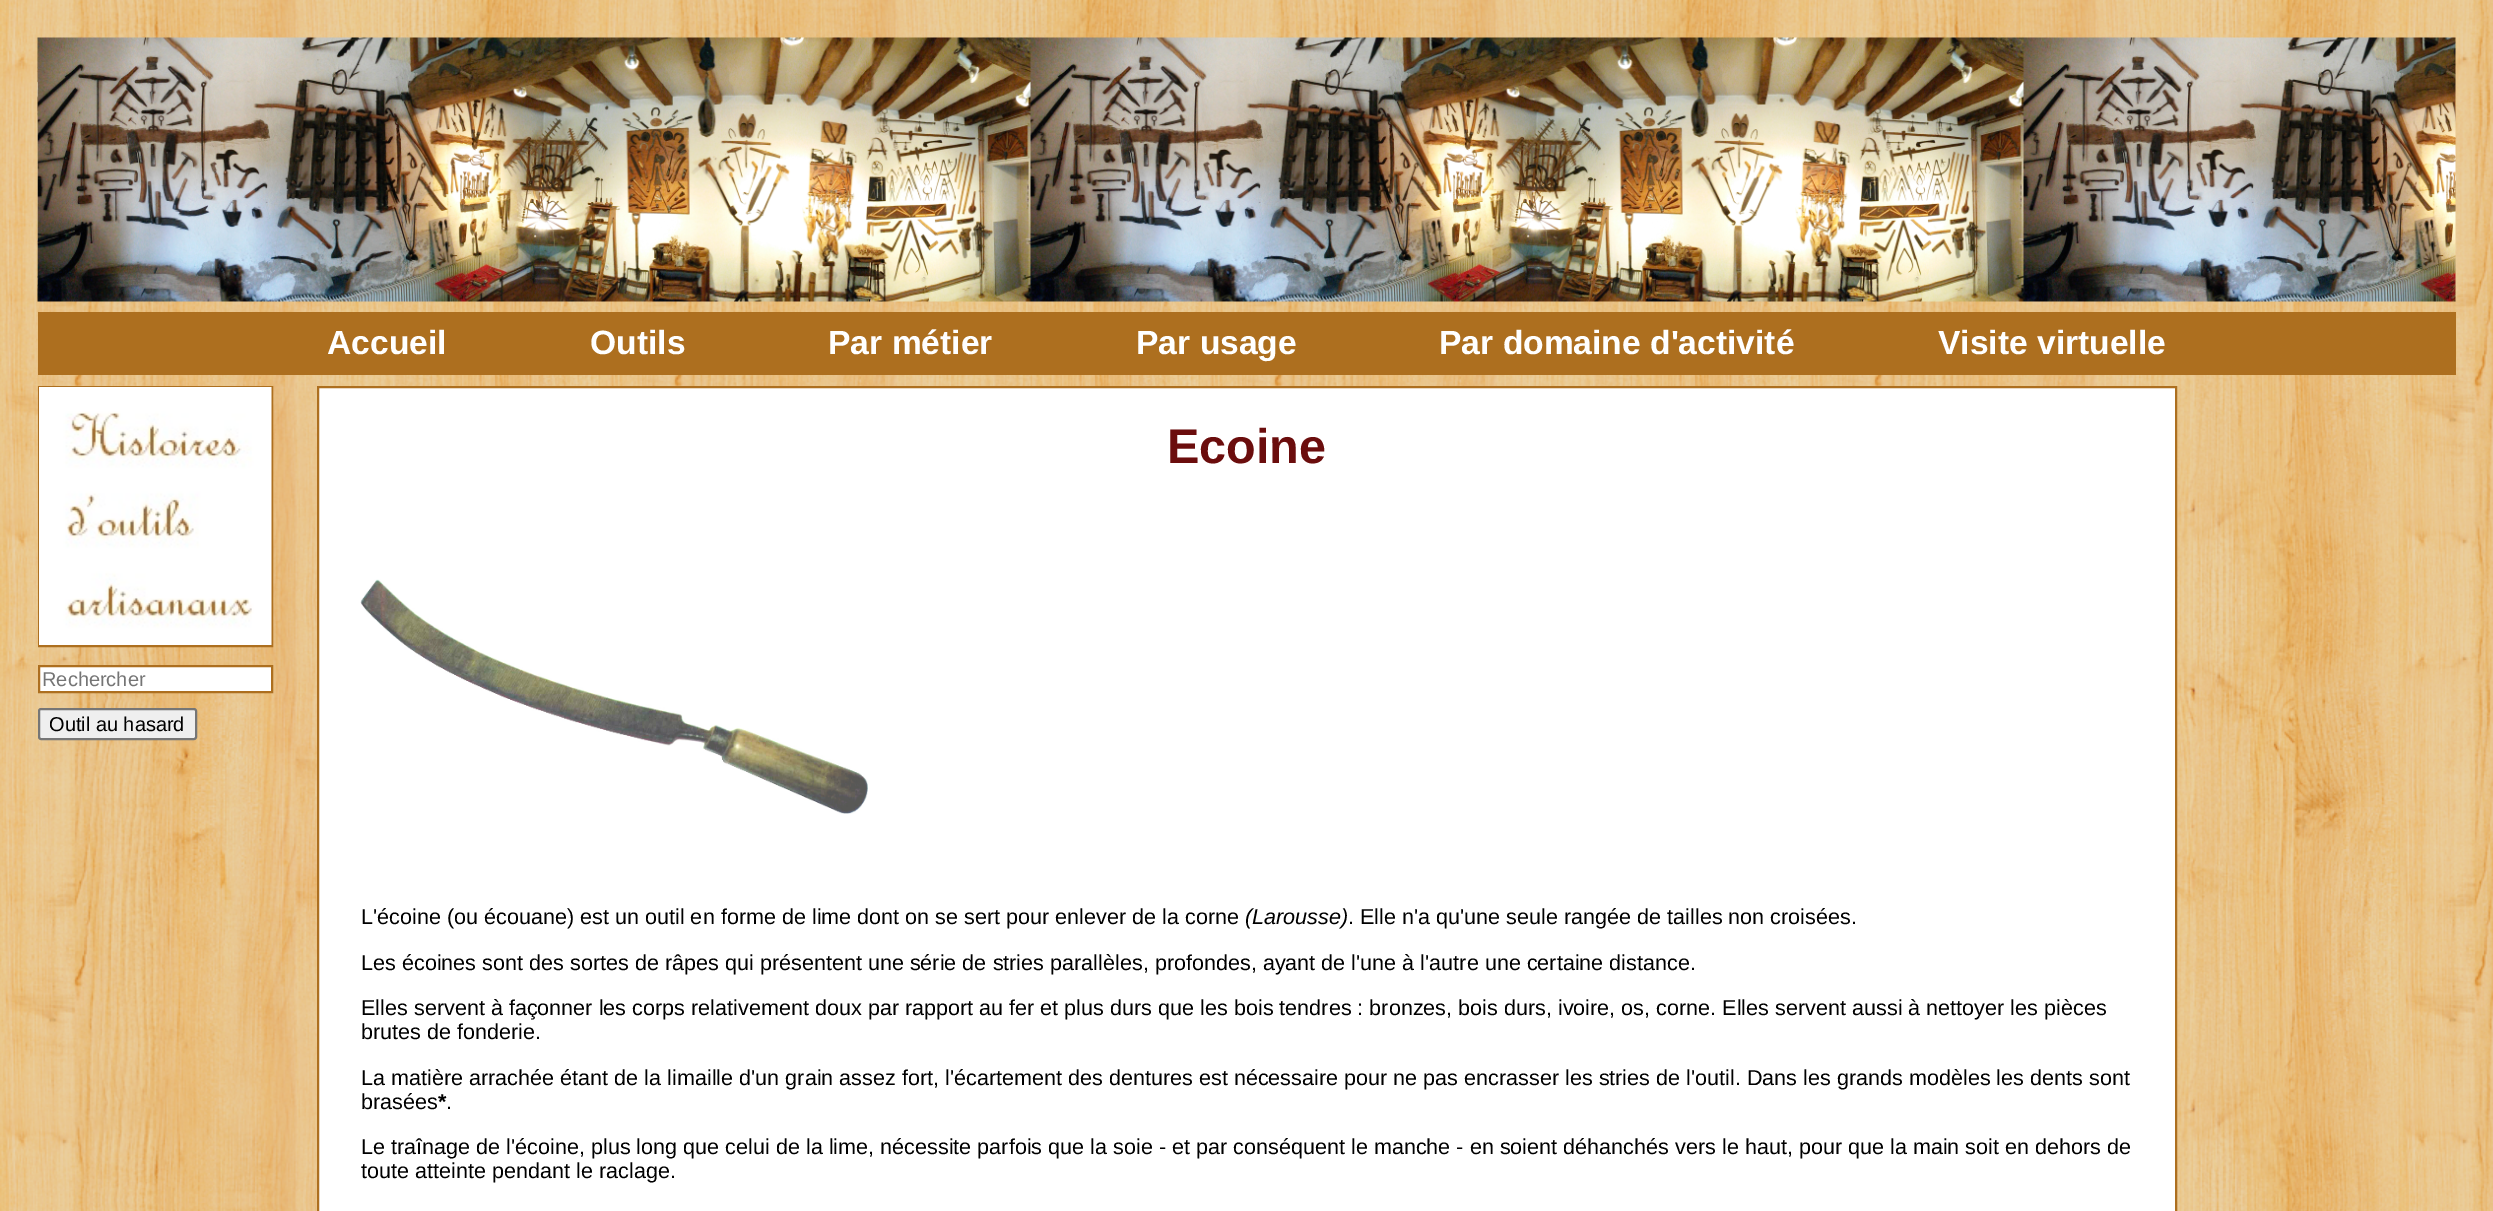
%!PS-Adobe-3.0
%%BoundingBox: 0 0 2493 1211
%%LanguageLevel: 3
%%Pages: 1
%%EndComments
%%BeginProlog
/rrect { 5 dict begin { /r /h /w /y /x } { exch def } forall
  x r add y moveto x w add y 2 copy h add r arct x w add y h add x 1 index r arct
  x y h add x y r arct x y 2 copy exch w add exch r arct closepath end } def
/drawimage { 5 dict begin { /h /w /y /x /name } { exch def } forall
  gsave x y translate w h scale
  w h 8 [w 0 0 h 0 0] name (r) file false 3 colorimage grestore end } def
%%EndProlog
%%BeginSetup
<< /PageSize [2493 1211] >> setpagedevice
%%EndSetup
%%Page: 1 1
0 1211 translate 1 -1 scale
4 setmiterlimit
1 setgray
0 0 2493 1211 rectfill
(images/1.raw) 0 0 2493 1211 drawimage
(images/2.raw) 37 37 2419 265 drawimage
0.678 0.435 0.122 setrgbcolor
38 312 2418 63 rectfill
2 setlinewidth
39 387 233 259 rectstroke
(images/3.raw) 39 387 233 258 drawimage
1 setgray
newpath 39 666 moveto 272 666 lineto 272 692 lineto 39 692 lineto closepath gsave fill grestore
0.678 0.435 0.122 setrgbcolor
stroke
0.937 setgray
39 709 157 30 2 rrect gsave fill grestore
0.463 setgray
stroke
1 setgray
newpath 318 387 moveto 2176 387 lineto 2176 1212 lineto 318 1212 lineto closepath gsave fill grestore
0.678 0.435 0.122 setrgbcolor
stroke
(images/4.raw) 360 579 508 235 drawimage
/LiberationSans-Bold [33.6 0 0 -33.6 0 0] selectfont
1 setgray
327 354 moveto (Accueil) show
590 354 moveto (Outils) show
828 354 moveto (Par métier) show
1136 354 moveto (Par usage) show
1439 354 moveto (Par domaine d'activité) show
1938 354 moveto (Visite virtuelle) show
/LiberationSans-Regular [20 0 0 -20 0 0] selectfont
0.459 setgray
42 686 moveto (Rechercher) show
0 setgray
49 731 moveto (Outil au hasard) show
/LiberationSans-Bold [48.5 0 0 -48.5 0 0] selectfont
0.42 0.051 0.051 setrgbcolor
1167 463 moveto (Ecoine) show
/LiberationSans-Regular [21.6 0 0 -21.6 0 0] selectfont
0 setgray
361 924 moveto (L'écoine \(ou écouane\) est un outil en forme de lime dont on se sert pour enlever de la corne) show
/LiberationSans-Italic [21.6 0 0 -21.6 0 0] selectfont
1245 924 moveto (\(Larousse\)) show
/LiberationSans-Regular [21.6 0 0 -21.6 0 0] selectfont
1348 924 moveto (. Elle n'a qu'une seule rangée de tailles non croisées.) show
361 970 moveto (Les écoines sont des sortes de râpes qui présentent une série de stries parallèles, profondes, ayant de l'une à l'autre une certaine distance.) show
361 1015 moveto (Elles servent à façonner les corps relativement doux par rapport au fer et plus durs que les bois tendres : bronzes, bois durs, ivoire, os, corne. Elles servent aussi à nettoyer les pièces) show
361 1039 moveto (brutes de fonderie.) show
361 1085 moveto (La matière arrachée étant de la limaille d'un grain assez fort, l'écartement des dentures est nécessaire pour ne pas encrasser les stries de l'outil. Dans les grands modèles les dents sont) show
361 1109 moveto (brasées) show
/LiberationSans-Bold [21.6 0 0 -21.6 0 0] selectfont
438 1109 moveto (*) show
/LiberationSans-Regular [21.6 0 0 -21.6 0 0] selectfont
446 1109 moveto (.) show
361 1154 moveto (Le traînage de l'écoine, plus long que celui de la lime, nécessite parfois que la soie - et par conséquent le manche - en soient déhanchés vers le haut, pour que la main soit en dehors de) show
361 1178 moveto (toute atteinte pendant le raclage.) show
showpage
%%EOF
